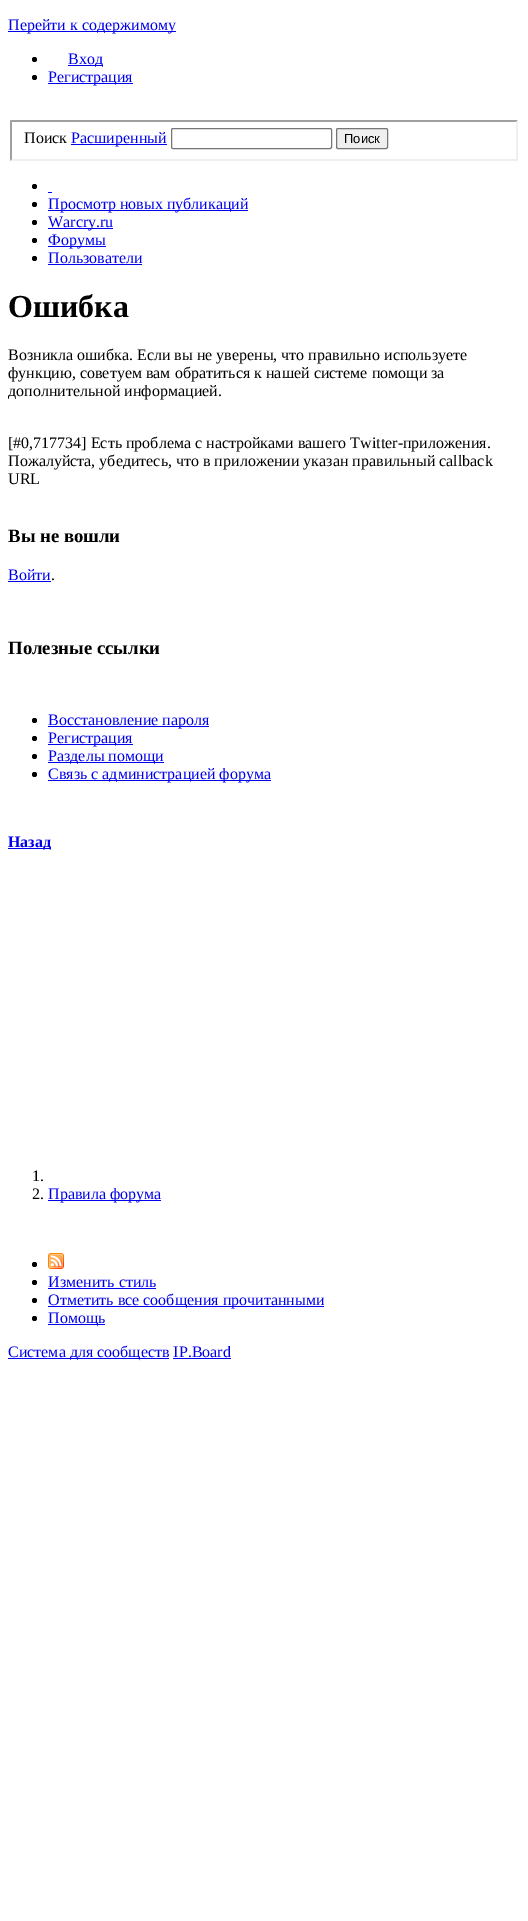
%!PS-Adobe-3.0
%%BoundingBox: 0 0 528 1921
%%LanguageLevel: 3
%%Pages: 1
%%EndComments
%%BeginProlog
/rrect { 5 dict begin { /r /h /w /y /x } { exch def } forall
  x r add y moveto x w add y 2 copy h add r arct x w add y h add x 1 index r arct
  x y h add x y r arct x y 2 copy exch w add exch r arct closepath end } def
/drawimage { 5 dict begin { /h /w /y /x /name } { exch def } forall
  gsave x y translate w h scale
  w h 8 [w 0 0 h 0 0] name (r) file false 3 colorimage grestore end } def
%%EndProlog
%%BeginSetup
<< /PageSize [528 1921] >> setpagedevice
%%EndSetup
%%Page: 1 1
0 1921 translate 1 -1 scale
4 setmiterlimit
1 setgray
0 0 528 1921 rectfill
0 0 0.933 setrgbcolor
8 31 168 1 rectfill
0 setgray
newpath 34.5 59.5 2.5 0 360 arc closepath fill
0 0 0.933 setrgbcolor
68 65 35 1 rectfill
0 setgray
newpath 34.5 77.5 2.5 0 360 arc closepath fill
0 0 0.933 setrgbcolor
48 83 85 1 rectfill
0.624 setgray
newpath 10 120 moveto 518 120 lineto 516 122 lineto 12 122 lineto closepath fill
0.937 setgray
newpath 518 120 moveto 518 161 lineto 516 159 lineto 516 122 lineto closepath fill
newpath 518 161 moveto 10 161 lineto 12 159 lineto 516 159 lineto closepath fill
0.624 setgray
newpath 10 161 moveto 10 120 lineto 12 122 lineto 12 159 lineto closepath fill
0 0 0.933 setrgbcolor
71 144 96 1 rectfill
0.463 setgray
171.5 128.5 160 20 1.5 rrect stroke
0.937 setgray
336.5 128.5 51 20 1.5 rrect gsave fill grestore
0.463 setgray
stroke
0 setgray
newpath 34.5 186.5 2.5 0 360 arc closepath fill
0 0 0.933 setrgbcolor
48 192 4 1 rectfill
0 setgray
newpath 34.5 204.5 2.5 0 360 arc closepath fill
0 0 0.933 setrgbcolor
48 210 200 1 rectfill
0 setgray
newpath 34.5 222.5 2.5 0 360 arc closepath fill
0 0 0.933 setrgbcolor
48 228 65 1 rectfill
0 setgray
newpath 34.5 240.5 2.5 0 360 arc closepath fill
0 0 0.933 setrgbcolor
48 246 58 1 rectfill
0 setgray
newpath 34.5 258.5 2.5 0 360 arc closepath fill
0 0 0.933 setrgbcolor
48 264 94 1 rectfill
8 581 43 1 rectfill
0 setgray
newpath 34.5 720.5 2.5 0 360 arc closepath fill
0 0 0.933 setrgbcolor
48 726 161 1 rectfill
0 setgray
newpath 34.5 738.5 2.5 0 360 arc closepath fill
0 0 0.933 setrgbcolor
48 744 85 1 rectfill
0 setgray
newpath 34.5 756.5 2.5 0 360 arc closepath fill
0 0 0.933 setrgbcolor
48 762 116 1 rectfill
0 setgray
newpath 34.5 774.5 2.5 0 360 arc closepath fill
0 0 0.933 setrgbcolor
48 780 223 1 rectfill
8 848 43 1 rectfill
48 1200 113 1 rectfill
0 setgray
newpath 34.5 1264.5 2.5 0 360 arc closepath fill
(images/1.raw) 48 1253 16 16 drawimage
newpath 34.5 1282.5 2.5 0 360 arc closepath fill
0 0 0.933 setrgbcolor
48 1288 108 1 rectfill
0 setgray
newpath 34.5 1300.5 2.5 0 360 arc closepath fill
0 0 0.933 setrgbcolor
48 1306 276 1 rectfill
0 setgray
newpath 34.5 1318.5 2.5 0 360 arc closepath fill
0 0 0.933 setrgbcolor
48 1324 57 1 rectfill
8 1358 161 1 rectfill
173 1358 58 1 rectfill
/LiberationSerif-Regular [16 0 0 -16 0 0] selectfont
8 30 moveto (Перейти к содержимому) show
68 64 moveto (Вход) show
48 82 moveto (Регистрация) show
0 setgray
24 143 moveto (Поиск) show
0 0 0.933 setrgbcolor
71 143 moveto (Расширенный) show
/LiberationSans-Regular [13 0 0 -13 0 0] selectfont
0 setgray
344 143 moveto (Поиск) show
/LiberationSerif-Regular [16 0 0 -16 0 0] selectfont
0 0 0.933 setrgbcolor
48 209 moveto (Просмотр новых публикаций) show
48 227 moveto (Warcry.ru) show
48 245 moveto (Форумы) show
48 263 moveto (Пользователи) show
/LiberationSerif-Bold [32 0 0 -32 0 0] selectfont
0 setgray
8 317 moveto (Ошибка) show
/LiberationSerif-Regular [16 0 0 -16 0 0] selectfont
8 360 moveto (Возникла ошибка. Если вы не уверены, что правильно используете) show
8 378 moveto (функцию, советуем вам обратиться к нашей системе помощи за) show
8 396 moveto (дополнительной информацией.) show
8 448 moveto ([#0,717734] Есть проблема с настройками вашего Twitter-приложения.) show
8 466 moveto (Пожалуйста, убедитесь, что в приложении указан правильный callback) show
8 484 moveto (URL) show
/LiberationSerif-Bold [18.75 0 0 -18.75 0 0] selectfont
8 542 moveto (Вы не вошли) show
/LiberationSerif-Regular [16 0 0 -16 0 0] selectfont
0 0 0.933 setrgbcolor
8 580 moveto (Войти) show
0 setgray
51 580 moveto (.) show
/LiberationSerif-Bold [18.75 0 0 -18.75 0 0] selectfont
8 654 moveto (Полезные ссылки) show
/LiberationSerif-Regular [16 0 0 -16 0 0] selectfont
0 0 0.933 setrgbcolor
48 725 moveto (Восстановление пароля) show
48 743 moveto (Регистрация) show
48 761 moveto (Разделы помощи) show
48 779 moveto (Связь с администрацией форума) show
/LiberationSerif-Bold [16 0 0 -16 0 0] selectfont
8 847 moveto (Назад) show
/LiberationSerif-Regular [16 0 0 -16 0 0] selectfont
0 setgray
32 1181 moveto (1.) show
32 1199 moveto (2.) show
0 0 0.933 setrgbcolor
48 1199 moveto (Правила форума) show
48 1287 moveto (Изменить стиль) show
48 1305 moveto (Отметить все сообщения прочитанными) show
48 1323 moveto (Помощь) show
8 1357 moveto (Система для сообществ IP.Board) show
showpage
%%EOF
